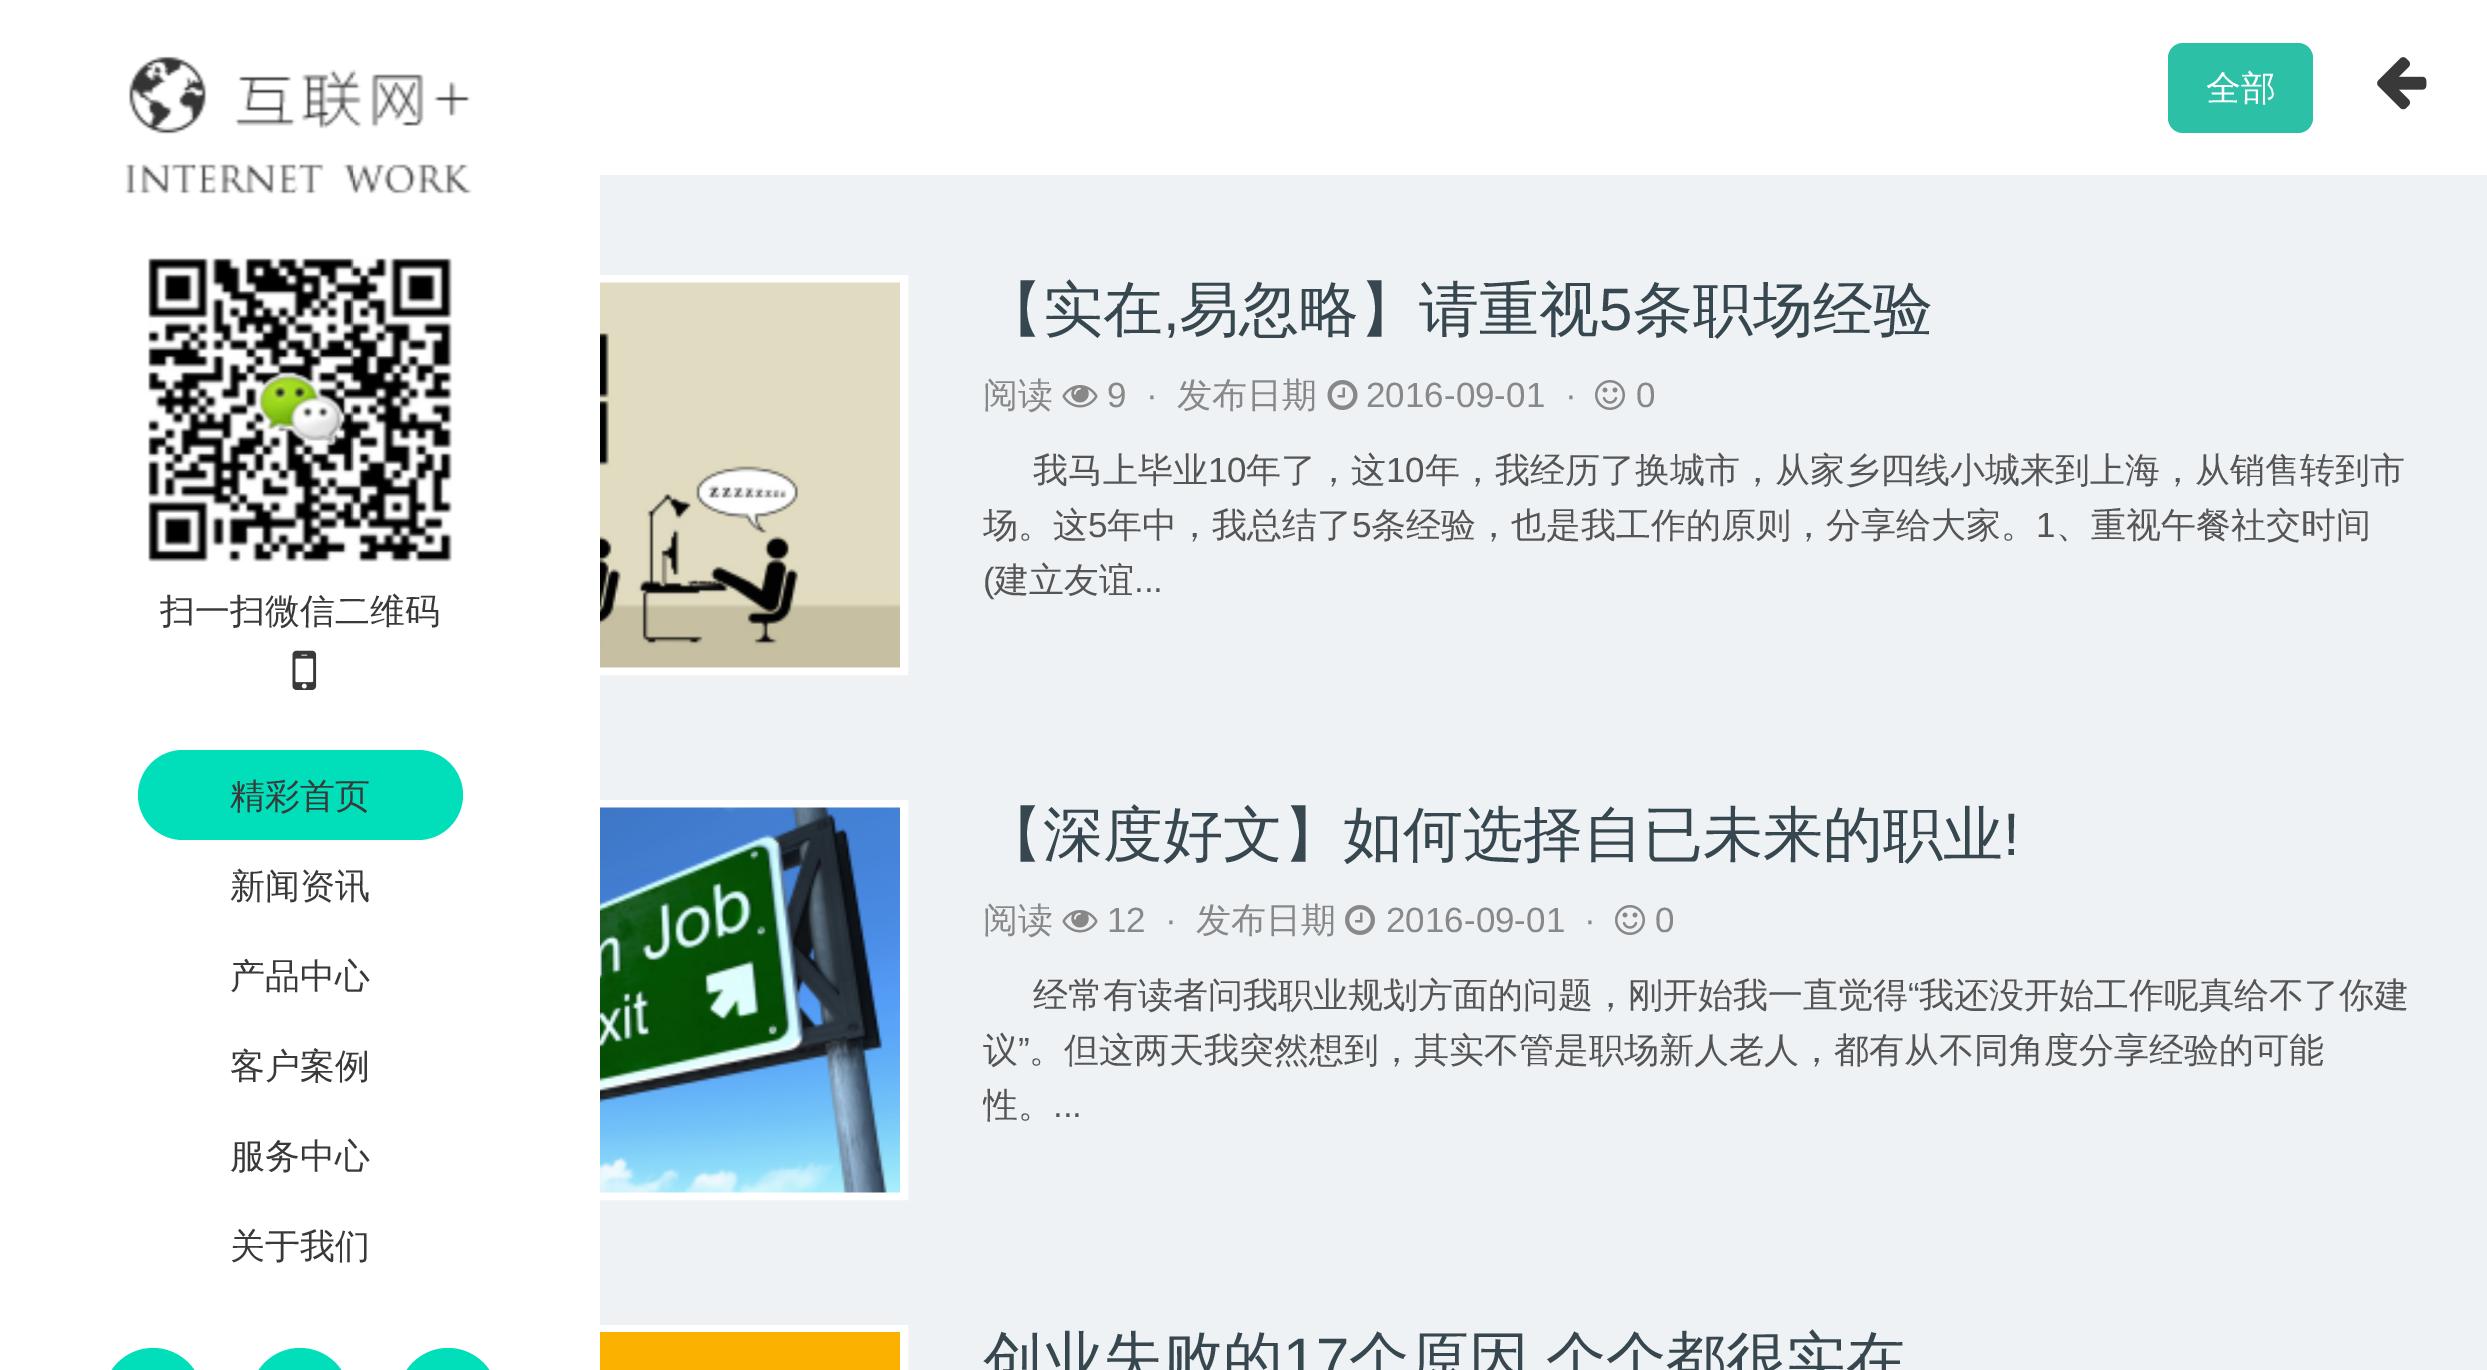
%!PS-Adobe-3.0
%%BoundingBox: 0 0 2487 1370
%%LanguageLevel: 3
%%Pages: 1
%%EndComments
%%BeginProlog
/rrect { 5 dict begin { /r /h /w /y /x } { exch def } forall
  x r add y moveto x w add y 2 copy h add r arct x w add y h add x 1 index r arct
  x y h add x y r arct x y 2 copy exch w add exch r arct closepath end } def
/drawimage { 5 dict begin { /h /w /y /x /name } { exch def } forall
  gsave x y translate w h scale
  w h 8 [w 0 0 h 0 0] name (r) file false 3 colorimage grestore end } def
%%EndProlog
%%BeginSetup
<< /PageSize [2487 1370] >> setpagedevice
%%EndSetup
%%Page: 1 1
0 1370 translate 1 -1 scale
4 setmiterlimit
0.937 0.949 0.957 setrgbcolor
0 0 2487 1370 rectfill
1 setgray
8 setlinewidth
267 279 637 392 rectstroke
267 804 637 392 rectstroke
267 1329 637 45 rectstroke
0 0 600 1370 rectfill
(images/1.raw) 125 56 348 138 drawimage
(images/2.raw) 147 257 306 305 drawimage
(images/3.raw) 292 650 25 40 drawimage
0 0.875 0.725 setrgbcolor
138 750 325 90 45 rrect fill
newpath 153 1348 moveto 180.5 1348 203 1370.5 203 1398 curveto 203 1370 lineto 103 1370 lineto 103 1398 lineto 103 1370.5 125.5 1348 153 1348 curveto closepath fill
newpath 300 1348 moveto 327.5 1348 350 1370.5 350 1398 curveto 350 1370 lineto 250 1370 lineto 250 1398 lineto 250 1370.5 272.5 1348 300 1348 curveto closepath fill
newpath 448 1348 moveto 475.5 1348 498 1370.5 498 1398 curveto 498 1370 lineto 398 1370 lineto 398 1398 lineto 398 1370.5 420.5 1348 448 1348 curveto closepath fill
1 setgray
600 0 1887 175 rectfill
0.173 0.753 0.655 setrgbcolor
2168 43 145 90 15 rrect fill
(images/4.raw) 2377 57 50 53 drawimage
(images/5.raw) 600 282 300 386 drawimage
(images/6.raw) 1062 385 36 23 drawimage
(images/7.raw) 1327 380 31 30 drawimage
(images/8.raw) 1595 380 30 30 drawimage
(images/9.raw) 600 807 300 386 drawimage
(images/6.raw) 1062 910 36 23 drawimage
(images/10.raw) 1345 905 30 30 drawimage
(images/8.raw) 1615 905 30 30 drawimage
0.984 0.694 0 setrgbcolor
600 1332 300 38 rectfill
/WenQuanYiZenHei-Medium [35 0 0 -35 0 0] selectfont
0.224 setgray
160 623 moveto (扫一扫微信二维码) show
230 808 moveto (精彩首页) show
230 898 moveto (新闻资讯) show
230 988 moveto (产品中心) show
230 1078 moveto (客户案例) show
230 1168 moveto (服务中心) show
230 1258 moveto (关于我们) show
1 setgray
2206 100 moveto (全部) show
/WenQuanYiZenHei-Medium [60 0 0 -60 0 0] selectfont
0.216 0.278 0.31 setrgbcolor
983 330 moveto (【实在) show
/LiberationSans-Regular [60 0 0 -60 0 0] selectfont
1163 330 moveto (,) show
/WenQuanYiZenHei-Medium [60 0 0 -60 0 0] selectfont
1179 330 moveto (易忽略】请重视) show
/LiberationSans-Regular [60 0 0 -60 0 0] selectfont
1599 330 moveto (5) show
/WenQuanYiZenHei-Medium [60 0 0 -60 0 0] selectfont
1633 330 moveto (条职场经验) show
/WenQuanYiZenHei-Medium [35 0 0 -35 0 0] selectfont
0.533 setgray
983 407 moveto (阅读) show
/LiberationSans-Regular [35 0 0 -35 0 0] selectfont
1107 407 moveto (9) show
1146 407 moveto (·) show
/WenQuanYiZenHei-Medium [35 0 0 -35 0 0] selectfont
1177 407 moveto (发布日期) show
/LiberationSans-Regular [35 0 0 -35 0 0] selectfont
1366 407 moveto (2016-09-01) show
1565 407 moveto (·) show
1636 407 moveto (0) show
/WenQuanYiZenHei-Medium [35 0 0 -35 0 0] selectfont
0.333 setgray
1033 482 moveto (我马上毕业) show
/LiberationSans-Regular [35 0 0 -35 0 0] selectfont
1208 482 moveto (10) show
/WenQuanYiZenHei-Medium [35 0 0 -35 0 0] selectfont
1246 482 moveto (年了，这) show
/LiberationSans-Regular [35 0 0 -35 0 0] selectfont
1386 482 moveto (10) show
/WenQuanYiZenHei-Medium [35 0 0 -35 0 0] selectfont
1425 482 moveto (年，我经历了换城市，从家乡四线小城来到上海，从销售转到市) show
983 537 moveto (场。这) show
/LiberationSans-Regular [35 0 0 -35 0 0] selectfont
1088 537 moveto (5) show
/WenQuanYiZenHei-Medium [35 0 0 -35 0 0] selectfont
1107 537 moveto (年中，我总结了) show
/LiberationSans-Regular [35 0 0 -35 0 0] selectfont
1352 537 moveto (5) show
/WenQuanYiZenHei-Medium [35 0 0 -35 0 0] selectfont
1371 537 moveto (条经验，也是我工作的原则，分享给大家。) show
/LiberationSans-Regular [35 0 0 -35 0 0] selectfont
2036 537 moveto (1) show
/WenQuanYiZenHei-Medium [35 0 0 -35 0 0] selectfont
2056 537 moveto (、重视午餐社交时间) show
/LiberationSans-Regular [35 0 0 -35 0 0] selectfont
983 592 moveto (\() show
/WenQuanYiZenHei-Medium [35 0 0 -35 0 0] selectfont
994 592 moveto (建立友谊) show
/LiberationSans-Regular [35 0 0 -35 0 0] selectfont
1134 592 moveto (...) show
/WenQuanYiZenHei-Medium [60 0 0 -60 0 0] selectfont
0.216 0.278 0.31 setrgbcolor
983 855 moveto (【深度好文】如何选择自已未来的职业) show
/LiberationSans-Regular [60 0 0 -60 0 0] selectfont
2003 855 moveto (!) show
/WenQuanYiZenHei-Medium [35 0 0 -35 0 0] selectfont
0.533 setgray
983 932 moveto (阅读) show
/LiberationSans-Regular [35 0 0 -35 0 0] selectfont
1107 932 moveto (12) show
1165 932 moveto (·) show
/WenQuanYiZenHei-Medium [35 0 0 -35 0 0] selectfont
1196 932 moveto (发布日期) show
/LiberationSans-Regular [35 0 0 -35 0 0] selectfont
1386 932 moveto (2016-09-01) show
1584 932 moveto (·) show
1655 932 moveto (0) show
/WenQuanYiZenHei-Medium [35 0 0 -35 0 0] selectfont
0.333 setgray
1033 1007 moveto (经常有读者问我职业规划方面的问题，刚开始我一直觉得) show
/LiberationSans-Regular [35 0 0 -35 0 0] selectfont
1908 1007 moveto (“) show
/WenQuanYiZenHei-Medium [35 0 0 -35 0 0] selectfont
1919 1007 moveto (我还没开始工作呢真给不了你建) show
983 1062 moveto (议) show
/LiberationSans-Regular [35 0 0 -35 0 0] selectfont
1018 1062 moveto (”) show
/WenQuanYiZenHei-Medium [35 0 0 -35 0 0] selectfont
1029 1062 moveto (。但这两天我突然想到，其实不管是职场新人老人，都有从不同角度分享经验的可能) show
gsave
983 968 1430 165 rectclip
983 1117 moveto (性。) show
grestore
/LiberationSans-Regular [35 0 0 -35 0 0] selectfont
1053 1117 moveto (...) show
/WenQuanYiZenHei-Medium [60 0 0 -60 0 0] selectfont
0.216 0.278 0.31 setrgbcolor
983 1380 moveto (创业失败的) show
/LiberationSans-Regular [60 0 0 -60 0 0] selectfont
1283 1380 moveto (17) show
/WenQuanYiZenHei-Medium [60 0 0 -60 0 0] selectfont
1349 1380 moveto (个原因) show
1546 1380 moveto (个个都很实在) show
showpage
%%EOF
